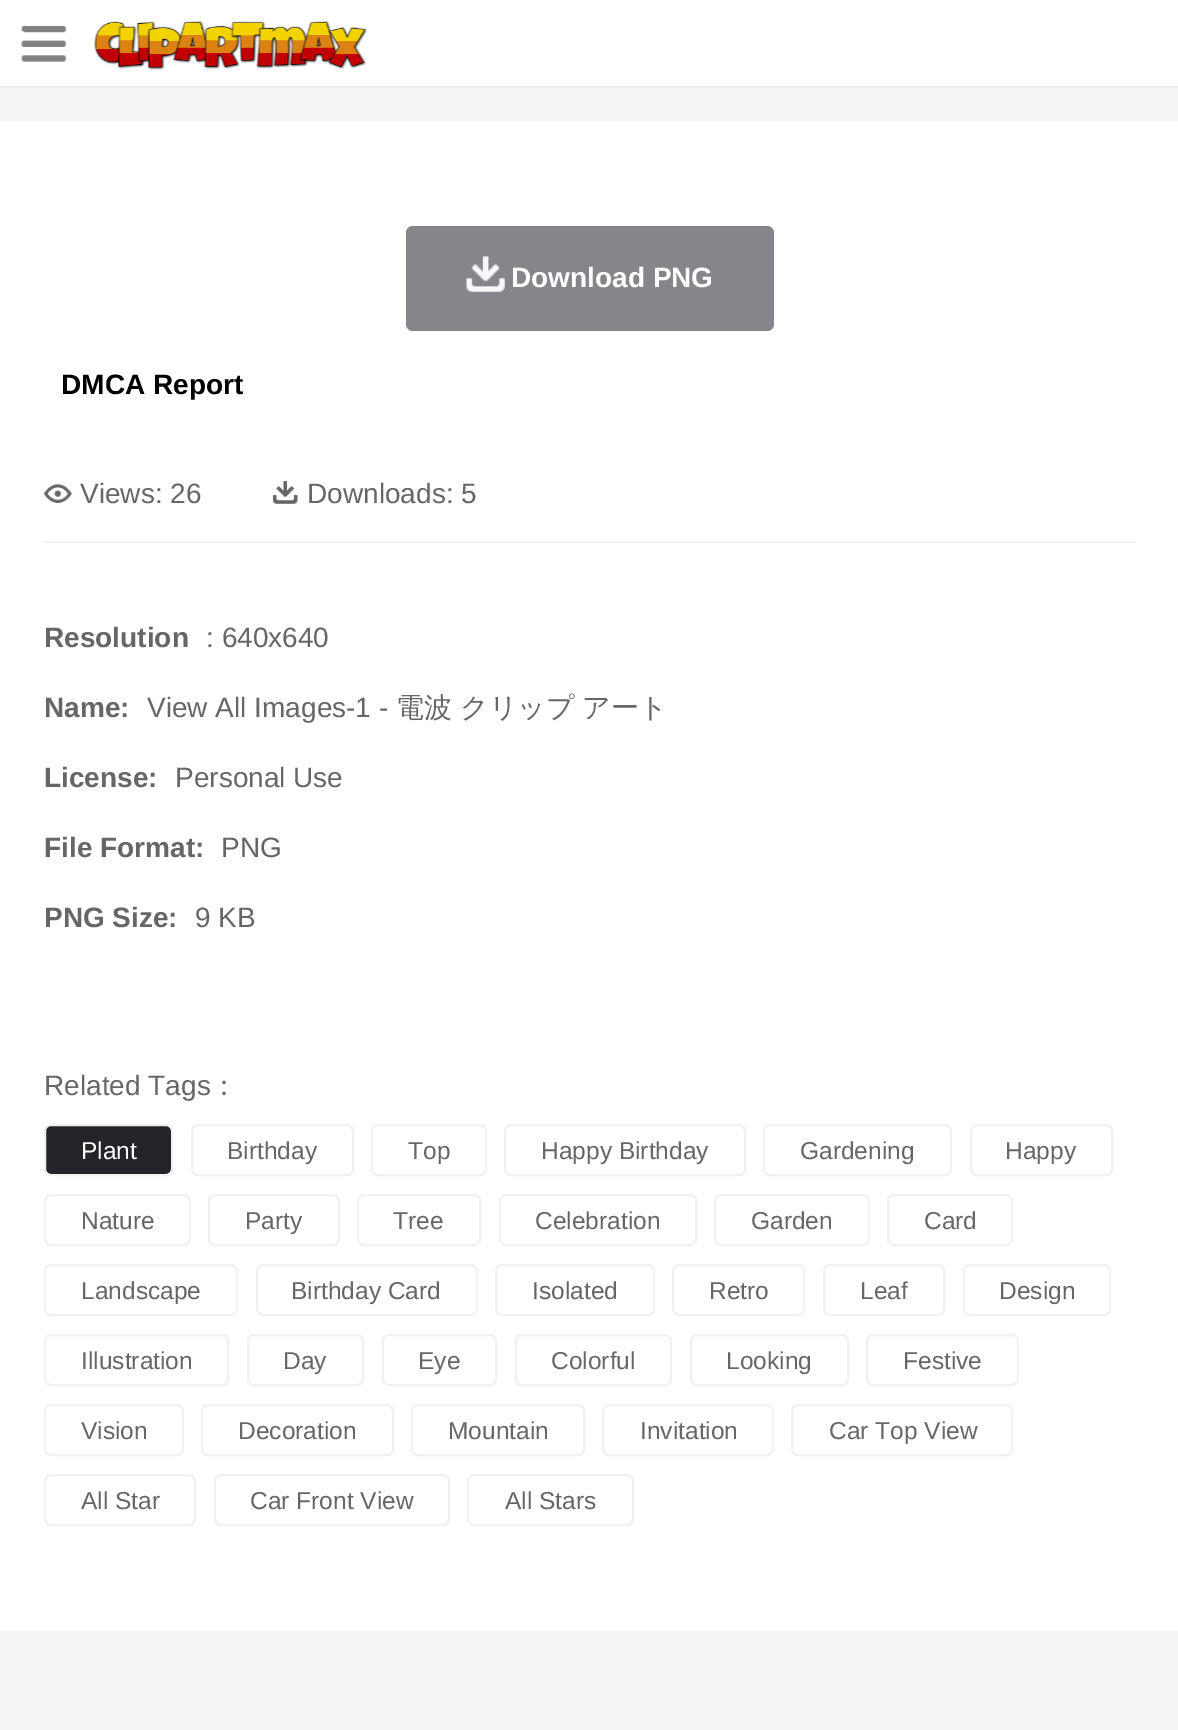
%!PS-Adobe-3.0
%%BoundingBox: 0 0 1178 1730
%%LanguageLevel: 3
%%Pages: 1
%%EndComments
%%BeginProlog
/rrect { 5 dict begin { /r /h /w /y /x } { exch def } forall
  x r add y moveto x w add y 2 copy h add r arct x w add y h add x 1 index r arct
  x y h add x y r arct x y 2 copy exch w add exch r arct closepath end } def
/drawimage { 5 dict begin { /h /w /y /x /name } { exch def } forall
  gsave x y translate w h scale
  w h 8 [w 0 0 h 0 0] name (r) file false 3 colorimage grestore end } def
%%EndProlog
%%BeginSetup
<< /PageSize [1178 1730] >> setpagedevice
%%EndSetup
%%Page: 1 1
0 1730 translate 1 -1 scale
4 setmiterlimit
0.961 setgray
0 0 1178 1730 rectfill
1 setgray
0 0 1178 86 rectfill
0.933 setgray
0 86 1178 2 rectfill
(images/1.raw) 21 25 46 37 drawimage
(images/2.raw) 94 21 274 49 drawimage
1 setgray
0 121 1178 1510 rectfill
0.525 0.525 0.541 setrgbcolor
406 226 368 105 7 rrect fill
(images/3.raw) 466 256 39 36 drawimage
0.945 setgray
44 541 1092 2 rectfill
(images/4.raw) 43 483 29 20 drawimage
(images/5.raw) 273 481 25 23 drawimage
0.137 0.137 0.157 setrgbcolor
45 1125 127 50 6 rrect gsave fill grestore
0.945 setgray
2 setlinewidth
stroke
192 1125 161 50 6 rrect stroke
372 1125 114 50 6 rrect stroke
505 1125 240 50 6 rrect stroke
764 1125 187 50 6 rrect stroke
971 1125 141 50 6 rrect stroke
45 1195 145 50 6 rrect stroke
209 1195 130 50 6 rrect stroke
358 1195 122 50 6 rrect stroke
500 1195 196 50 6 rrect stroke
715 1195 154 50 6 rrect stroke
888 1195 124 50 6 rrect stroke
45 1265 192 50 6 rrect stroke
257 1265 220 50 6 rrect stroke
496 1265 158 50 6 rrect stroke
673 1265 131 50 6 rrect stroke
824 1265 120 50 6 rrect stroke
964 1265 146 50 6 rrect stroke
45 1335 183 50 6 rrect stroke
248 1335 115 50 6 rrect stroke
383 1335 113 50 6 rrect stroke
516 1335 155 50 6 rrect stroke
691 1335 157 50 6 rrect stroke
867 1335 151 50 6 rrect stroke
45 1405 138 50 6 rrect stroke
202 1405 191 50 6 rrect stroke
412 1405 172 50 6 rrect stroke
603 1405 170 50 6 rrect stroke
792 1405 220 50 6 rrect stroke
45 1475 150 50 6 rrect stroke
215 1475 234 50 6 rrect stroke
468 1475 165 50 6 rrect stroke
/LiberationSans-Bold [28 0 0 -28 0 0] selectfont
1 setgray
511 287 moveto (Download PNG) show
0 setgray
61 394 moveto (DMCA Report) show
/LiberationSans-Regular [28 0 0 -28 0 0] selectfont
0.4 setgray
80 503 moveto (Views: 26) show
307 503 moveto (Downloads: 5) show
/LiberationSans-Bold [28 0 0 -28 0 0] selectfont
44 647 moveto (Resolution) show
/LiberationSans-Regular [28 0 0 -28 0 0] selectfont
206 647 moveto (: 640x640) show
/LiberationSans-Bold [28 0 0 -28 0 0] selectfont
44 717 moveto (Name:) show
/LiberationSans-Regular [28 0 0 -28 0 0] selectfont
147 717 moveto (View All Images-1 -) show
/WenQuanYiZenHei-Medium [28 0 0 -28 0 0] selectfont
396 717 moveto (電波) show
460 717 moveto (クリップ) show
582 717 moveto (アート) show
/LiberationSans-Bold [28 0 0 -28 0 0] selectfont
44 787 moveto (License:) show
/LiberationSans-Regular [28 0 0 -28 0 0] selectfont
175 787 moveto (Personal Use) show
/LiberationSans-Bold [28 0 0 -28 0 0] selectfont
44 857 moveto (File Format:) show
/LiberationSans-Regular [28 0 0 -28 0 0] selectfont
221 857 moveto (PNG) show
/LiberationSans-Bold [28 0 0 -28 0 0] selectfont
44 927 moveto (PNG Size:) show
/LiberationSans-Regular [28 0 0 -28 0 0] selectfont
195 927 moveto (9 KB) show
44 1095 moveto (Related Tags) show
/WenQuanYiZenHei-Medium [28 0 0 -28 0 0] selectfont
210 1095 moveto (：) show
/LiberationSans-Regular [24.5 0 0 -24.5 0 0] selectfont
1 setgray
81 1159 moveto (Plant) show
0.4 setgray
227 1159 moveto (Birthday) show
408 1159 moveto (Top) show
541 1159 moveto (Happy Birthday) show
800 1159 moveto (Gardening) show
1005 1159 moveto (Happy) show
81 1229 moveto (Nature) show
245 1229 moveto (Party) show
393 1229 moveto (Tree) show
535 1229 moveto (Celebration) show
751 1229 moveto (Garden) show
924 1229 moveto (Card) show
81 1299 moveto (Landscape) show
291 1299 moveto (Birthday Card) show
532 1299 moveto (Isolated) show
709 1299 moveto (Retro) show
860 1299 moveto (Leaf) show
999 1299 moveto (Design) show
81 1369 moveto (Illustration) show
283 1369 moveto (Day) show
418 1369 moveto (Eye) show
551 1369 moveto (Colorful) show
726 1369 moveto (Looking) show
903 1369 moveto (Festive) show
81 1439 moveto (Vision) show
238 1439 moveto (Decoration) show
448 1439 moveto (Mountain) show
640 1439 moveto (Invitation) show
829 1439 moveto (Car Top View) show
81 1509 moveto (All Star) show
250 1509 moveto (Car Front View) show
505 1509 moveto (All Stars) show
showpage
%%EOF
